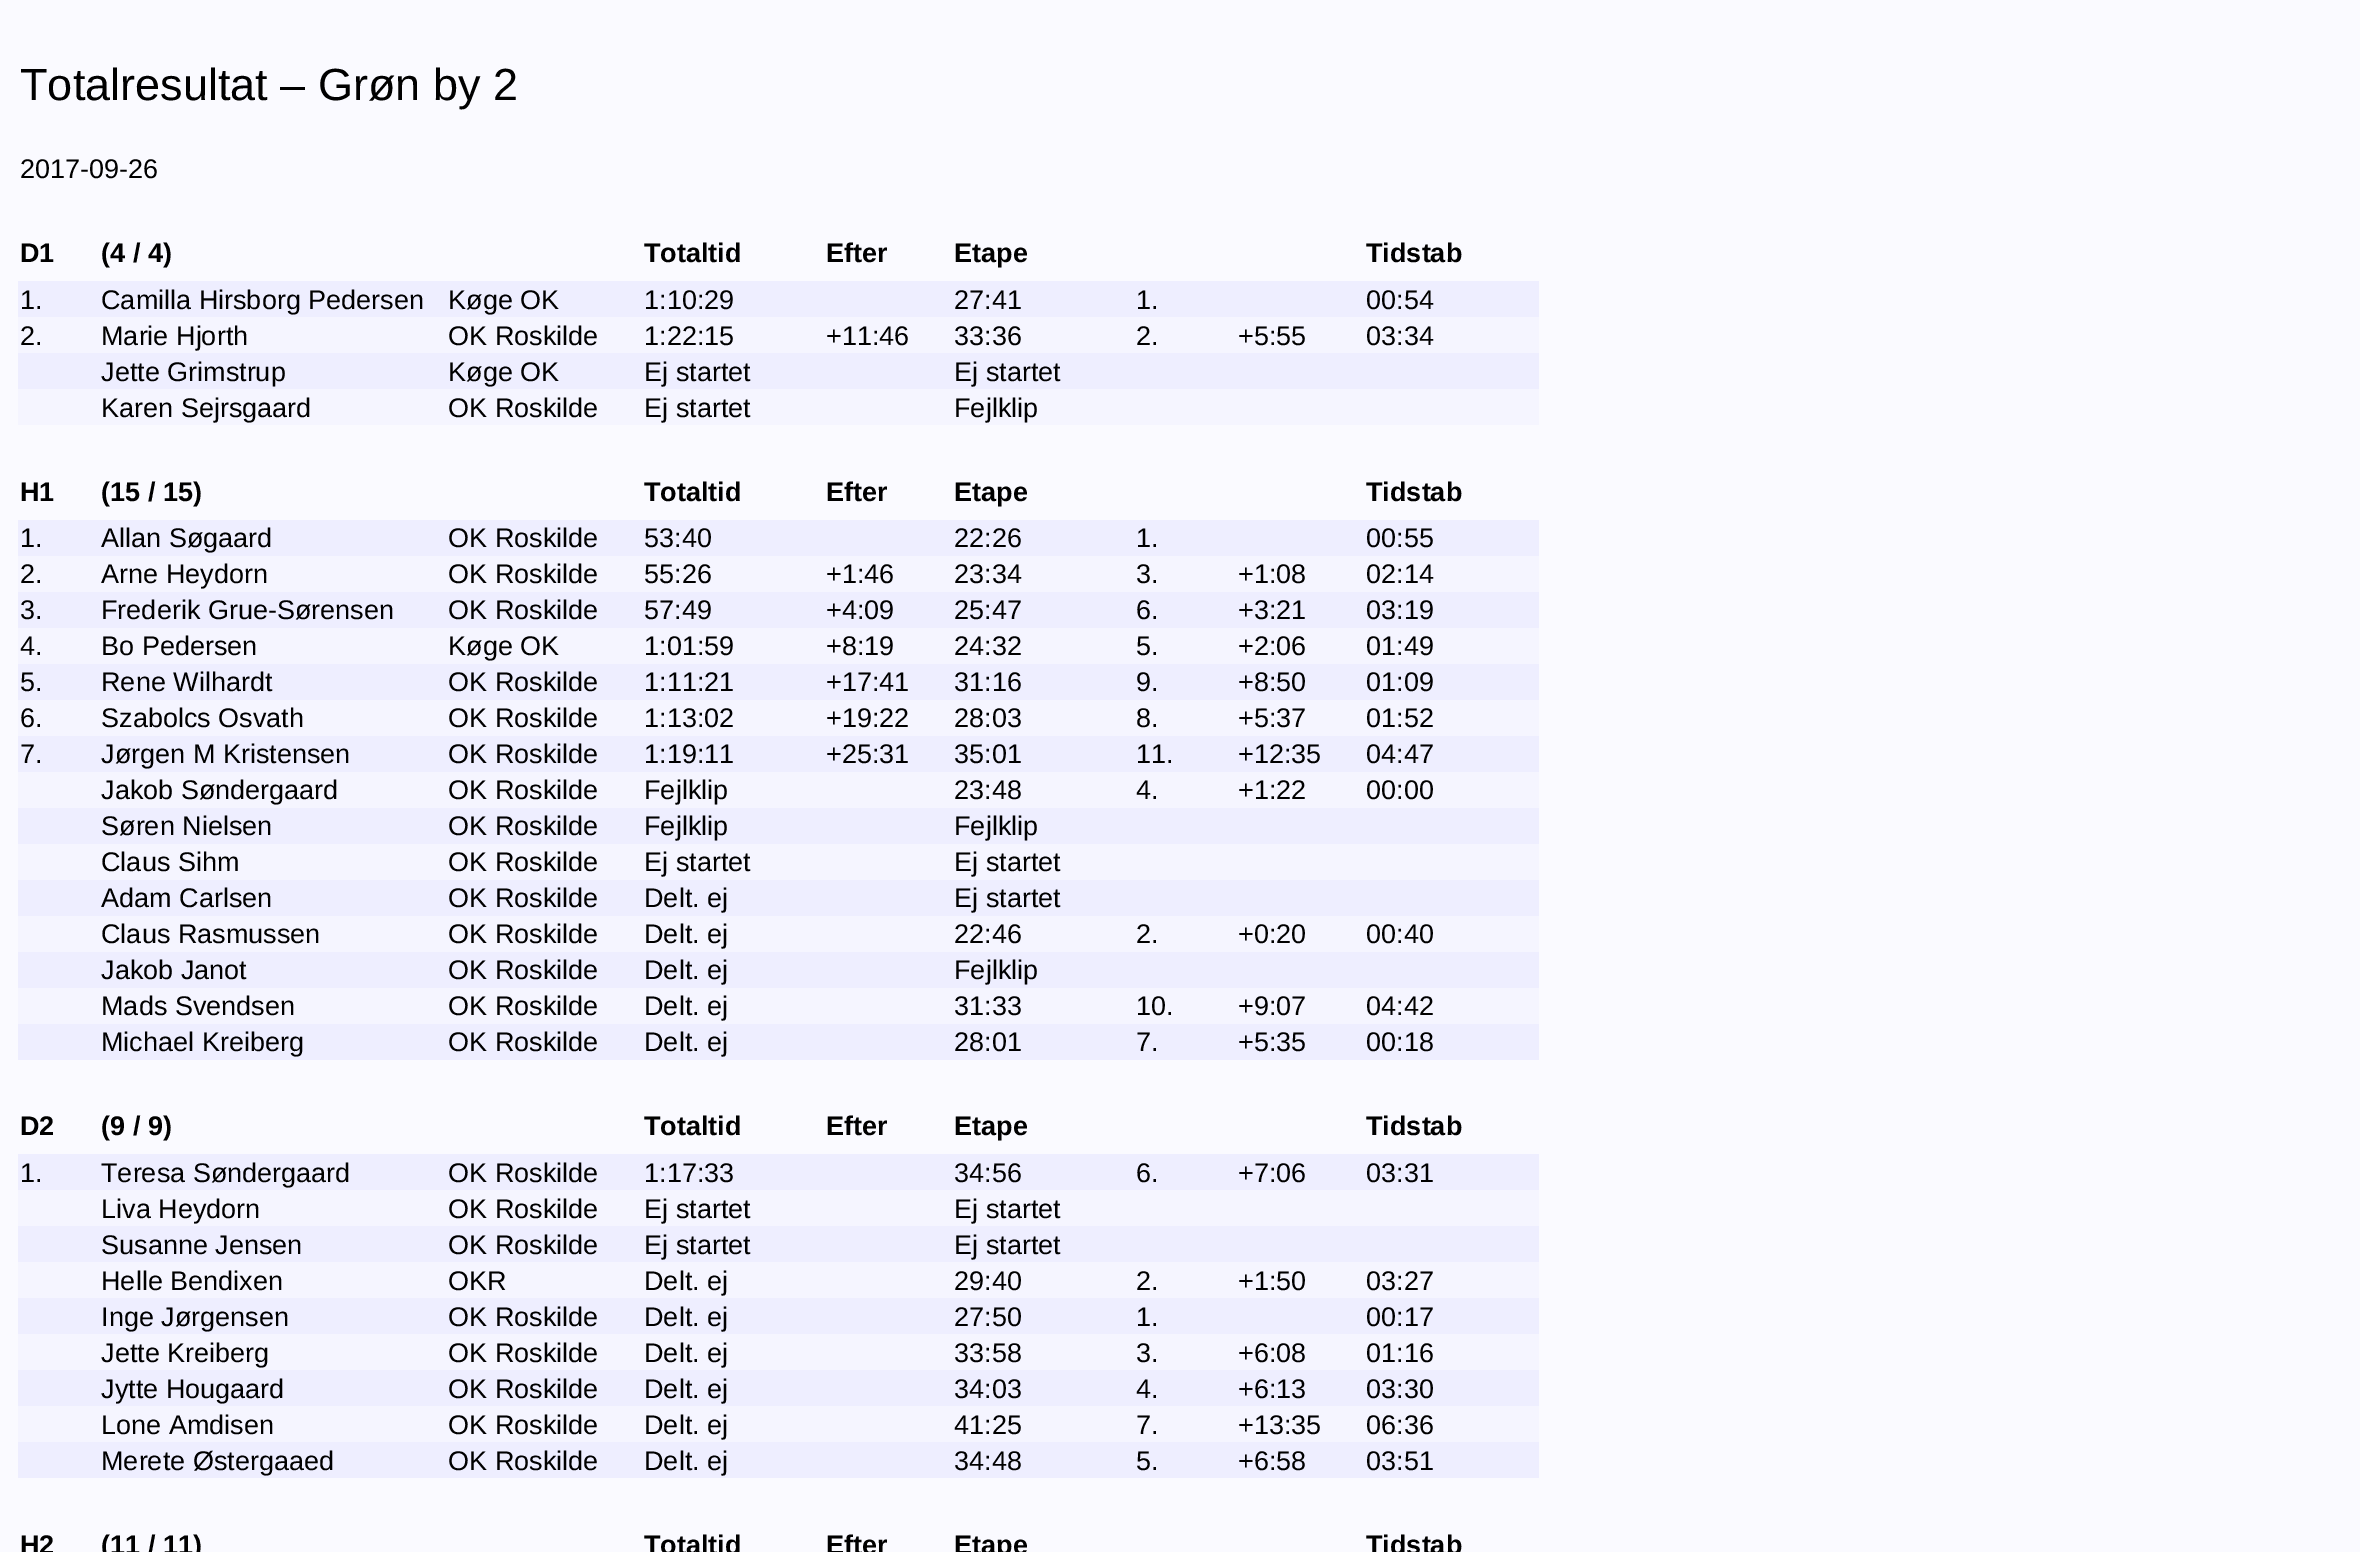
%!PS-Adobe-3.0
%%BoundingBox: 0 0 2360 1552
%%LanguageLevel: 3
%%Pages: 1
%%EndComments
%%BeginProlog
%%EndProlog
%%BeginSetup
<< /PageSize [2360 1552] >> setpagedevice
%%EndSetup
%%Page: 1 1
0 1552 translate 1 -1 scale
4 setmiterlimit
0.98 0.98 1 setrgbcolor
0 0 2360 1552 rectfill
0.933 0.933 1 setrgbcolor
18 281 1521 36 rectfill
0.961 0.961 1 setrgbcolor
18 317 1521 36 rectfill
0.933 0.933 1 setrgbcolor
18 353 1521 36 rectfill
0.961 0.961 1 setrgbcolor
18 389 1521 36 rectfill
0.933 0.933 1 setrgbcolor
18 520 1521 36 rectfill
0.961 0.961 1 setrgbcolor
18 556 1521 36 rectfill
0.933 0.933 1 setrgbcolor
18 592 1521 36 rectfill
0.961 0.961 1 setrgbcolor
18 628 1521 36 rectfill
0.933 0.933 1 setrgbcolor
18 664 1521 36 rectfill
0.961 0.961 1 setrgbcolor
18 700 1521 36 rectfill
0.933 0.933 1 setrgbcolor
18 736 1521 36 rectfill
0.961 0.961 1 setrgbcolor
18 772 1521 36 rectfill
0.933 0.933 1 setrgbcolor
18 808 1521 36 rectfill
0.961 0.961 1 setrgbcolor
18 844 1521 36 rectfill
0.933 0.933 1 setrgbcolor
18 880 1521 36 rectfill
0.961 0.961 1 setrgbcolor
18 916 1521 36 rectfill
0.933 0.933 1 setrgbcolor
18 952 1521 36 rectfill
0.961 0.961 1 setrgbcolor
18 988 1521 36 rectfill
0.933 0.933 1 setrgbcolor
18 1024 1521 36 rectfill
18 1154 1521 36 rectfill
0.961 0.961 1 setrgbcolor
18 1190 1521 36 rectfill
0.933 0.933 1 setrgbcolor
18 1226 1521 36 rectfill
0.961 0.961 1 setrgbcolor
18 1262 1521 36 rectfill
0.933 0.933 1 setrgbcolor
18 1298 1521 36 rectfill
0.961 0.961 1 setrgbcolor
18 1334 1521 36 rectfill
0.933 0.933 1 setrgbcolor
18 1370 1521 36 rectfill
0.961 0.961 1 setrgbcolor
18 1406 1521 36 rectfill
0.933 0.933 1 setrgbcolor
18 1442 1521 36 rectfill
/LiberationSans-Regular [45 0 0 -45 0 0] selectfont
0 setgray
20 100 moveto (Totalresultat – Grøn by 2) show
/LiberationSans-Regular [27 0 0 -27 0 0] selectfont
20 178 moveto (2017-09-26) show
/LiberationSans-Bold [27 0 0 -27 0 0] selectfont
20 262 moveto (D1) show
101 262 moveto (\(4 / 4\)) show
644 262 moveto (Totaltid) show
826 262 moveto (Efter) show
954 262 moveto (Etape) show
1366 262 moveto (Tidstab) show
/LiberationSans-Regular [27 0 0 -27 0 0] selectfont
20 309 moveto (1.) show
101 309 moveto (Camilla Hirsborg Pedersen) show
448 309 moveto (Køge OK) show
644 309 moveto (1:10:29) show
954 309 moveto (27:41) show
1136 309 moveto (1.) show
1366 309 moveto (00:54) show
20 345 moveto (2.) show
101 345 moveto (Marie Hjorth) show
448 345 moveto (OK Roskilde) show
644 345 moveto (1:22:15) show
826 345 moveto (+11:46) show
954 345 moveto (33:36) show
1136 345 moveto (2.) show
1238 345 moveto (+5:55) show
1366 345 moveto (03:34) show
101 381 moveto (Jette Grimstrup) show
448 381 moveto (Køge OK) show
644 381 moveto (Ej startet) show
954 381 moveto (Ej startet) show
101 417 moveto (Karen Sejrsgaard) show
448 417 moveto (OK Roskilde) show
644 417 moveto (Ej startet) show
954 417 moveto (Fejlklip) show
/LiberationSans-Bold [27 0 0 -27 0 0] selectfont
20 501 moveto (H1) show
101 501 moveto (\(15 / 15\)) show
644 501 moveto (Totaltid) show
826 501 moveto (Efter) show
954 501 moveto (Etape) show
1366 501 moveto (Tidstab) show
/LiberationSans-Regular [27 0 0 -27 0 0] selectfont
20 547 moveto (1.) show
101 547 moveto (Allan Søgaard) show
448 547 moveto (OK Roskilde) show
644 547 moveto (53:40) show
954 547 moveto (22:26) show
1136 547 moveto (1.) show
1366 547 moveto (00:55) show
20 583 moveto (2.) show
101 583 moveto (Arne Heydorn) show
448 583 moveto (OK Roskilde) show
644 583 moveto (55:26) show
826 583 moveto (+1:46) show
954 583 moveto (23:34) show
1136 583 moveto (3.) show
1238 583 moveto (+1:08) show
1366 583 moveto (02:14) show
20 619 moveto (3.) show
101 619 moveto (Frederik Grue-Sørensen) show
448 619 moveto (OK Roskilde) show
644 619 moveto (57:49) show
826 619 moveto (+4:09) show
954 619 moveto (25:47) show
1136 619 moveto (6.) show
1238 619 moveto (+3:21) show
1366 619 moveto (03:19) show
20 655 moveto (4.) show
101 655 moveto (Bo Pedersen) show
448 655 moveto (Køge OK) show
644 655 moveto (1:01:59) show
826 655 moveto (+8:19) show
954 655 moveto (24:32) show
1136 655 moveto (5.) show
1238 655 moveto (+2:06) show
1366 655 moveto (01:49) show
20 691 moveto (5.) show
101 691 moveto (Rene Wilhardt) show
448 691 moveto (OK Roskilde) show
644 691 moveto (1:11:21) show
826 691 moveto (+17:41) show
954 691 moveto (31:16) show
1136 691 moveto (9.) show
1238 691 moveto (+8:50) show
1366 691 moveto (01:09) show
20 727 moveto (6.) show
101 727 moveto (Szabolcs Osvath) show
448 727 moveto (OK Roskilde) show
644 727 moveto (1:13:02) show
826 727 moveto (+19:22) show
954 727 moveto (28:03) show
1136 727 moveto (8.) show
1238 727 moveto (+5:37) show
1366 727 moveto (01:52) show
20 763 moveto (7.) show
101 763 moveto (Jørgen M Kristensen) show
448 763 moveto (OK Roskilde) show
644 763 moveto (1:19:11) show
826 763 moveto (+25:31) show
954 763 moveto (35:01) show
1136 763 moveto (11.) show
1238 763 moveto (+12:35) show
1366 763 moveto (04:47) show
101 799 moveto (Jakob Søndergaard) show
448 799 moveto (OK Roskilde) show
644 799 moveto (Fejlklip) show
954 799 moveto (23:48) show
1136 799 moveto (4.) show
1238 799 moveto (+1:22) show
1366 799 moveto (00:00) show
101 835 moveto (Søren Nielsen) show
448 835 moveto (OK Roskilde) show
644 835 moveto (Fejlklip) show
954 835 moveto (Fejlklip) show
101 871 moveto (Claus Sihm) show
448 871 moveto (OK Roskilde) show
644 871 moveto (Ej startet) show
954 871 moveto (Ej startet) show
101 907 moveto (Adam Carlsen) show
448 907 moveto (OK Roskilde) show
644 907 moveto (Delt. ej) show
954 907 moveto (Ej startet) show
101 943 moveto (Claus Rasmussen) show
448 943 moveto (OK Roskilde) show
644 943 moveto (Delt. ej) show
954 943 moveto (22:46) show
1136 943 moveto (2.) show
1238 943 moveto (+0:20) show
1366 943 moveto (00:40) show
101 979 moveto (Jakob Janot) show
448 979 moveto (OK Roskilde) show
644 979 moveto (Delt. ej) show
954 979 moveto (Fejlklip) show
101 1015 moveto (Mads Svendsen) show
448 1015 moveto (OK Roskilde) show
644 1015 moveto (Delt. ej) show
954 1015 moveto (31:33) show
1136 1015 moveto (10.) show
1238 1015 moveto (+9:07) show
1366 1015 moveto (04:42) show
101 1051 moveto (Michael Kreiberg) show
448 1051 moveto (OK Roskilde) show
644 1051 moveto (Delt. ej) show
954 1051 moveto (28:01) show
1136 1051 moveto (7.) show
1238 1051 moveto (+5:35) show
1366 1051 moveto (00:18) show
/LiberationSans-Bold [27 0 0 -27 0 0] selectfont
20 1135 moveto (D2) show
101 1135 moveto (\(9 / 9\)) show
644 1135 moveto (Totaltid) show
826 1135 moveto (Efter) show
954 1135 moveto (Etape) show
1366 1135 moveto (Tidstab) show
/LiberationSans-Regular [27 0 0 -27 0 0] selectfont
20 1182 moveto (1.) show
101 1182 moveto (Teresa Søndergaard) show
448 1182 moveto (OK Roskilde) show
644 1182 moveto (1:17:33) show
954 1182 moveto (34:56) show
1136 1182 moveto (6.) show
1238 1182 moveto (+7:06) show
1366 1182 moveto (03:31) show
101 1218 moveto (Liva Heydorn) show
448 1218 moveto (OK Roskilde) show
644 1218 moveto (Ej startet) show
954 1218 moveto (Ej startet) show
101 1254 moveto (Susanne Jensen) show
448 1254 moveto (OK Roskilde) show
644 1254 moveto (Ej startet) show
954 1254 moveto (Ej startet) show
101 1290 moveto (Helle Bendixen) show
448 1290 moveto (OKR) show
644 1290 moveto (Delt. ej) show
954 1290 moveto (29:40) show
1136 1290 moveto (2.) show
1238 1290 moveto (+1:50) show
1366 1290 moveto (03:27) show
101 1326 moveto (Inge Jørgensen) show
448 1326 moveto (OK Roskilde) show
644 1326 moveto (Delt. ej) show
954 1326 moveto (27:50) show
1136 1326 moveto (1.) show
1366 1326 moveto (00:17) show
101 1362 moveto (Jette Kreiberg) show
448 1362 moveto (OK Roskilde) show
644 1362 moveto (Delt. ej) show
954 1362 moveto (33:58) show
1136 1362 moveto (3.) show
1238 1362 moveto (+6:08) show
1366 1362 moveto (01:16) show
101 1398 moveto (Jytte Hougaard) show
448 1398 moveto (OK Roskilde) show
644 1398 moveto (Delt. ej) show
954 1398 moveto (34:03) show
1136 1398 moveto (4.) show
1238 1398 moveto (+6:13) show
1366 1398 moveto (03:30) show
101 1434 moveto (Lone Amdisen) show
448 1434 moveto (OK Roskilde) show
644 1434 moveto (Delt. ej) show
954 1434 moveto (41:25) show
1136 1434 moveto (7.) show
1238 1434 moveto (+13:35) show
1366 1434 moveto (06:36) show
101 1470 moveto (Merete Østergaaed) show
448 1470 moveto (OK Roskilde) show
644 1470 moveto (Delt. ej) show
954 1470 moveto (34:48) show
1136 1470 moveto (5.) show
1238 1470 moveto (+6:58) show
1366 1470 moveto (03:51) show
/LiberationSans-Bold [27 0 0 -27 0 0] selectfont
20 1554 moveto (H2) show
101 1554 moveto (\(11 / 11\)) show
644 1554 moveto (Totaltid) show
826 1554 moveto (Efter) show
954 1554 moveto (Etape) show
1366 1554 moveto (Tidstab) show
showpage
%%EOF
